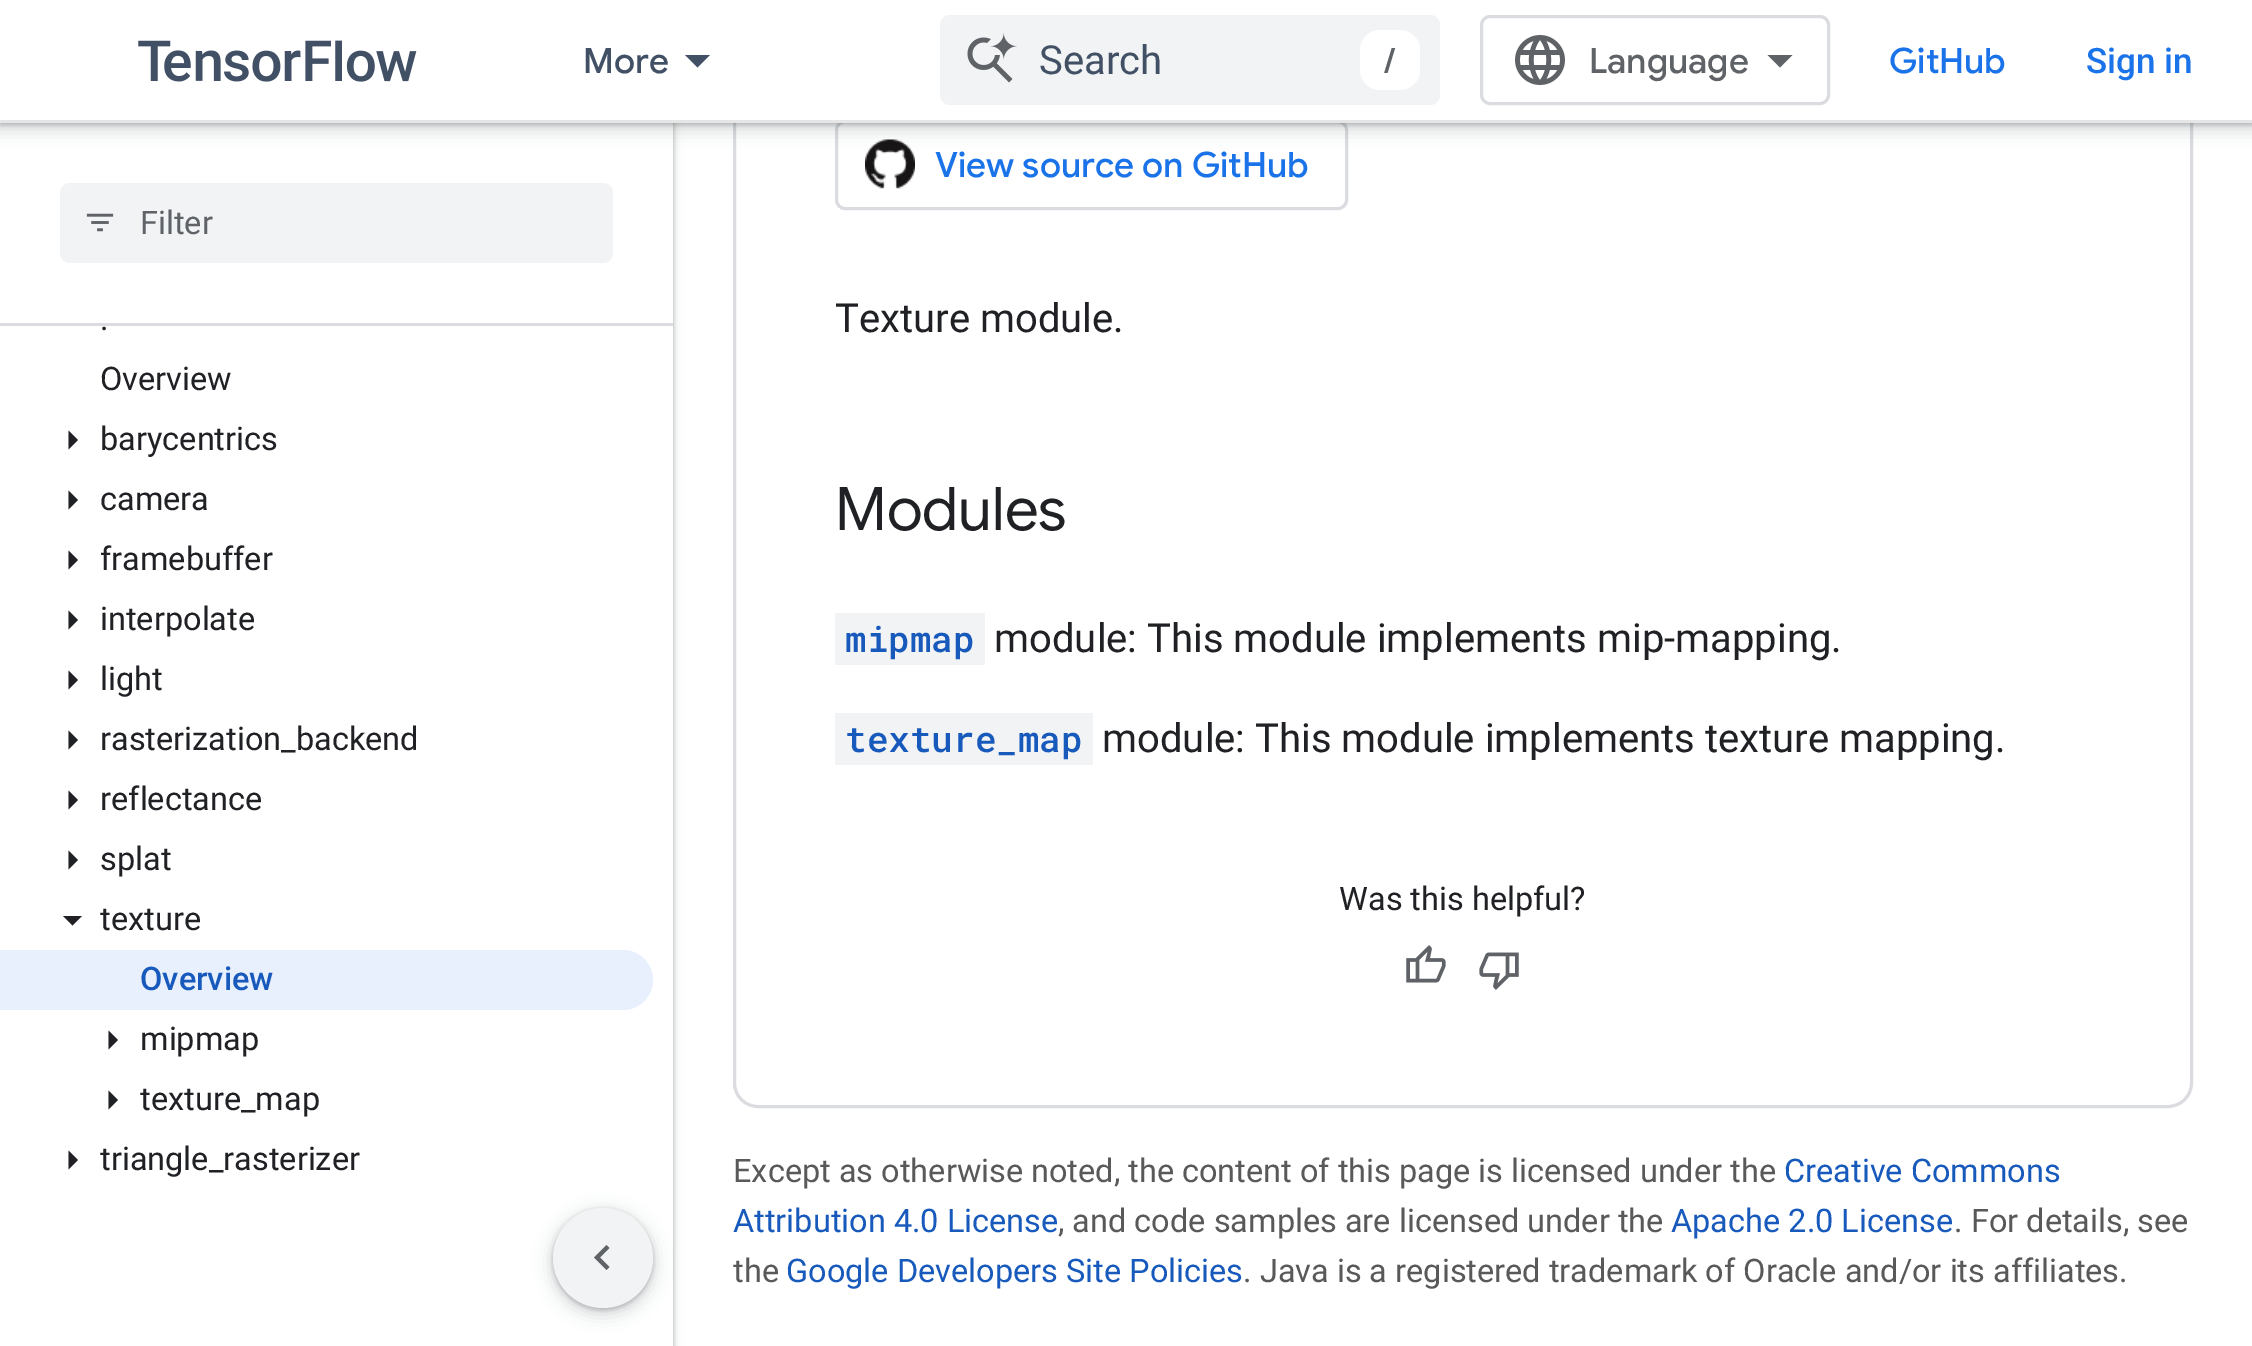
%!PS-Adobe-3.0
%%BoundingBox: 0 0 2252 1346
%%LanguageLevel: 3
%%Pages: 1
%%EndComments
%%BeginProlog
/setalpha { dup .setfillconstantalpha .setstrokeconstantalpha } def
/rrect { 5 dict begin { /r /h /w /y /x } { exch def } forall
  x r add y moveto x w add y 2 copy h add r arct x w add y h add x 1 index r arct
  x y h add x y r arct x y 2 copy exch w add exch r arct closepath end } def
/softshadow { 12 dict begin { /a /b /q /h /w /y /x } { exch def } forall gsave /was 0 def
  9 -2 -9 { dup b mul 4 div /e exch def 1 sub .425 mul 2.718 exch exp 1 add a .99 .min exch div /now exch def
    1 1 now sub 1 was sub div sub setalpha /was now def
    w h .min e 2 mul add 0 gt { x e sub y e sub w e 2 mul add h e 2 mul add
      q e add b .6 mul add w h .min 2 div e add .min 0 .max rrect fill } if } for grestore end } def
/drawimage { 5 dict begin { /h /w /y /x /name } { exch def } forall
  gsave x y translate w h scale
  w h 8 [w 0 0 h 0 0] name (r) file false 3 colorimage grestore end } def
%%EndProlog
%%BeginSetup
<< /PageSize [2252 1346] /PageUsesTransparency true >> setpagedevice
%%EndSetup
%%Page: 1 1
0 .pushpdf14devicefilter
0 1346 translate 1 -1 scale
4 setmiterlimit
1 setgray
0 0 2252 1346 rectfill
0.235 0.251 0.263 setrgbcolor
-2 0 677 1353 0 4 0.15 softshadow
0 3 673 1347 0 2.5 0.3 softshadow
1 setgray
0 326 673 1020 rectfill
0 123 673 200 rectfill
0.855 0.863 0.878 setrgbcolor
3 setlinewidth
734.5 -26.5 1457 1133 23.5 rrect stroke
836.5 121.5 510 87 8.5 rrect stroke
(images/5.raw) 865 139 50 50 drawimage
0.235 0.251 0.263 setrgbcolor
-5 -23 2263 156 0 7.5 0.15 softshadow
0 -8 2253 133 0 2.5 0.3 softshadow
1 setgray
0 0 2252 120 rectfill
0.902 setgray
0 120 2252 3 rectfill
(images/1.raw) 138 40 279 42 drawimage
0.259 0.314 0.4 setrgbcolor
newpath 685 55 moveto 710 55 lineto 697.5 67.5 lineto closepath fill
0.945 0.953 0.957 setrgbcolor
940 15 500 90 10 rrect fill
(images/2.raw) 967 33 50 50 drawimage
1 setgray
1360 30 60 60 20 rrect fill
0.855 0.863 0.878 setrgbcolor
1481.5 16.5 347 87 8.5 rrect stroke
(images/3.raw) 1515 35 50 50 drawimage
0.373 0.388 0.408 setrgbcolor
newpath 1780 67.5 moveto 1767.5 55 lineto 1792.5 55 lineto closepath fill
0.855 0.863 0.878 setrgbcolor
0 323 673 3 rectfill
0.945 0.953 0.957 setrgbcolor
60 183 553 80 10 rrect fill
(images/4.raw) 86 213 28 19 drawimage
0.125 0.129 0.141 setrgbcolor
newpath 68.5 449.5 moveto 68.5 430.5 lineto 78 440 lineto closepath fill
newpath 68.5 509.5 moveto 68.5 490.5 lineto 78 500 lineto closepath fill
newpath 68.5 569.5 moveto 68.5 550.5 lineto 78 560 lineto closepath fill
newpath 68.5 629.5 moveto 68.5 610.5 lineto 78 620 lineto closepath fill
newpath 68.5 689.5 moveto 68.5 670.5 lineto 78 680 lineto closepath fill
newpath 68.5 749.5 moveto 68.5 730.5 lineto 78 740 lineto closepath fill
newpath 68.5 809.5 moveto 68.5 790.5 lineto 78 800 lineto closepath fill
newpath 68.5 869.5 moveto 68.5 850.5 lineto 78 860 lineto closepath fill
newpath 63 916 moveto 82 916 lineto 72.5 925.5 lineto closepath fill
0.91 0.941 0.996 setrgbcolor
newpath 0 950 moveto 623 950 lineto 639.5 950 653 963.5 653 980 curveto 653 996.5 639.5 1010 623 1010 curveto 0 1010 lineto closepath fill
0.125 0.129 0.141 setrgbcolor
newpath 108.5 1049.5 moveto 108.5 1030.5 lineto 118 1040 lineto closepath fill
newpath 108.5 1109.5 moveto 108.5 1090.5 lineto 118 1100 lineto closepath fill
newpath 68.5 1169.5 moveto 68.5 1150.5 lineto 78 1160 lineto closepath fill
0.945 0.953 0.957 setrgbcolor
835 613 150 52 rectfill
835 713 258 52 rectfill
(images/6.raw) 1406 945 40 38 drawimage
(images/7.raw) 1479 952 40 38 drawimage
0.235 0.251 0.263 setrgbcolor
548 1208 110 110 55 7.5 0.15 softshadow
553 1210 100 100 50 2.5 0.3 softshadow
0.945 0.953 0.957 setrgbcolor
newpath 603 1258 50 0 360 arc closepath fill
0.373 0.388 0.408 setrgbcolor
newpath 609.5 1248 moveto 600 1257.5 lineto 609.5 1267 lineto 606.5 1270 lineto 594 1257.5 lineto 606.5 1245 lineto closepath fill
/GoogleSans-Medium [35 0 0 -35 0 0] selectfont
0.259 0.314 0.4 setrgbcolor
583 73 moveto (More) show
/Roboto-Regular [40 0 0 -40 0 0] selectfont
1039 74 moveto (Search) show
/GoogleSans-Medium [35 0 0 -35 0 0] selectfont
0.373 0.388 0.408 setrgbcolor
1384 73 moveto (/) show
1589 73 moveto (Language) show
0.102 0.451 0.91 setrgbcolor
1889 73 moveto (GitHub) show
/Roboto-Medium [35 0 0 -35 0 0] selectfont
2086 73 moveto (Sign in) show
/Roboto-Regular [32.5 0 0 -32.5 0 0] selectfont
0.373 0.388 0.408 setrgbcolor
140 234 moveto (Filter) show
0.125 0.129 0.141 setrgbcolor
100 330 moveto (.) show
100 390 moveto (Overview) show
100 450 moveto (barycentrics) show
100 510 moveto (camera) show
100 570 moveto (framebuffer) show
100 630 moveto (interpolate) show
100 690 moveto (light) show
100 750 moveto (rasterization_backend) show
100 810 moveto (reflectance) show
100 870 moveto (splat) show
100 930 moveto (texture) show
/Roboto-Medium [32.5 0 0 -32.5 0 0] selectfont
0.094 0.353 0.737 setrgbcolor
140 990 moveto (Overview) show
/Roboto-Regular [32.5 0 0 -32.5 0 0] selectfont
0.125 0.129 0.141 setrgbcolor
140 1050 moveto (mipmap) show
140 1110 moveto (texture_map) show
100 1170 moveto (triangle_rasterizer) show
/GoogleSans-Medium [35 0 0 -35 0 0] selectfont
0.102 0.451 0.91 setrgbcolor
935 177 moveto (View source on GitHub) show
/Roboto-Regular [40 0 0 -40 0 0] selectfont
0.125 0.129 0.141 setrgbcolor
835 332 moveto (Texture module.) show
/GoogleSans-Regular [60 0 0 -60 0 0] selectfont
835 530 moveto (Modules) show
/RobotoMono-Medium [36 0 0 -36 0 0] selectfont
0.094 0.353 0.737 setrgbcolor
845 652 moveto (mipmap) show
/Roboto-Regular [40 0 0 -40 0 0] selectfont
0.125 0.129 0.141 setrgbcolor
994 652 moveto (module: This module implements mip-mapping.) show
/RobotoMono-Medium [36 0 0 -36 0 0] selectfont
0.094 0.353 0.737 setrgbcolor
845 752 moveto (texture_map) show
/Roboto-Regular [40 0 0 -40 0 0] selectfont
0.125 0.129 0.141 setrgbcolor
1102 752 moveto (module: This module implements texture mapping.) show
/Roboto-Regular [32.5 0 0 -32.5 0 0] selectfont
1339 910 moveto (Was this helpful?) show
0.349 setgray
733 1182 moveto (Except as otherwise noted, the content of this page is licensed under the) show
0.094 0.353 0.737 setrgbcolor
1784 1182 moveto (Creative Commons) show
733 1232 moveto (Attribution 4.0 License) show
0.349 setgray
1058 1232 moveto (, and code samples are licensed under the) show
0.094 0.353 0.737 setrgbcolor
1671 1232 moveto (Apache 2.0 License) show
0.349 setgray
1954 1232 moveto (. For details, see) show
733 1282 moveto (the) show
0.094 0.353 0.737 setrgbcolor
786 1282 moveto (Google Developers Site Policies) show
0.349 setgray
1243 1282 moveto (. Java is a registered trademark of Oracle and/or its affiliates.) show
.poppdf14devicefilter showpage
%%EOF
